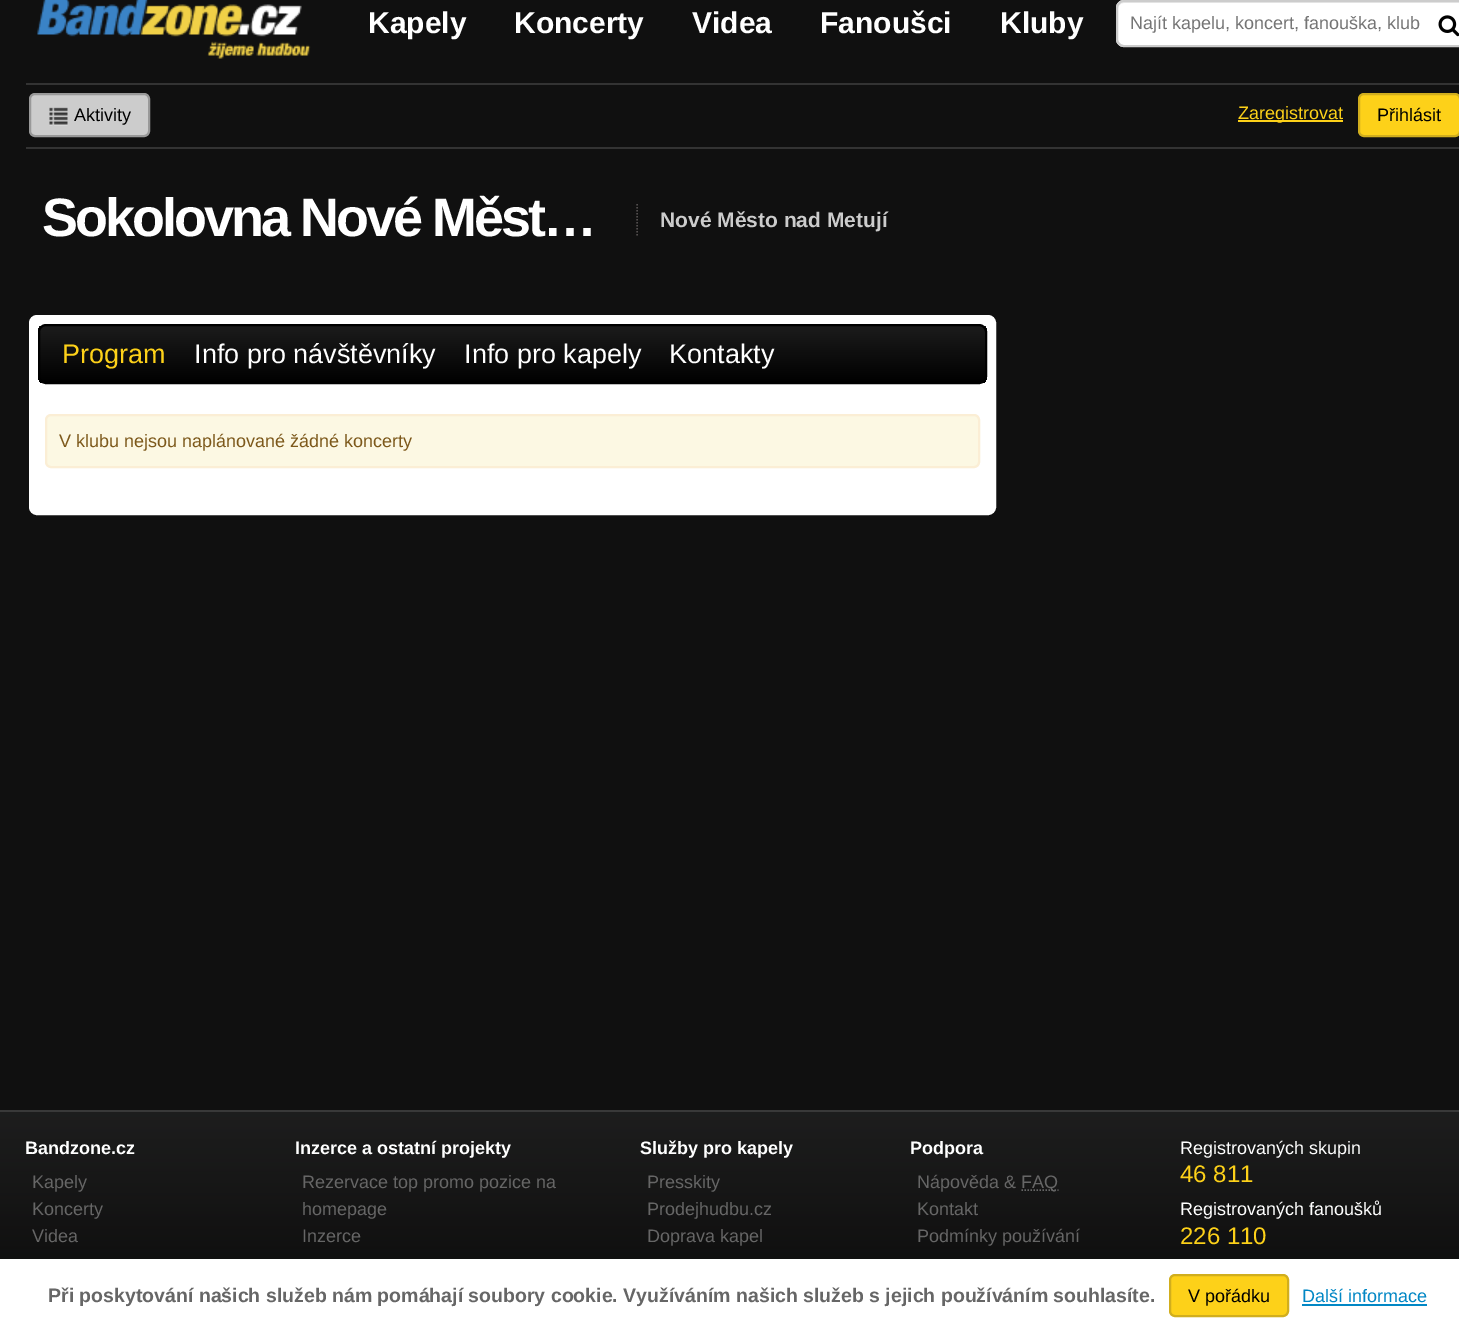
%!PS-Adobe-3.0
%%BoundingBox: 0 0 1459 1332
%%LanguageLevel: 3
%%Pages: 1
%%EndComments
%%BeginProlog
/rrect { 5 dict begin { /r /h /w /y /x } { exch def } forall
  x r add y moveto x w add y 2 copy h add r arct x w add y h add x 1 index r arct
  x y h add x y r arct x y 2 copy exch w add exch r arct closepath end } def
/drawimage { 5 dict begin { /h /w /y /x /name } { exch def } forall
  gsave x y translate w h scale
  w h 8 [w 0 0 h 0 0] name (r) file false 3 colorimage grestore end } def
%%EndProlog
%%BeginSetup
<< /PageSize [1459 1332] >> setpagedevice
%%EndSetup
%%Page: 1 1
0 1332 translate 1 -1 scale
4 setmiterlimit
0.063 setgray
0 0 1459 1332 rectfill
(images/1.raw) 29 0 282 59 drawimage
1 setgray
1116 0 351 47 8 rrect fill
0.925 setgray
newpath 1124 3 moveto 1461 3 lineto 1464 3 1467 6 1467 9 curveto 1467 5 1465 2 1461 2 curveto 1124 2 lineto 1120 2 1118 5 1118 9 curveto 1118 6 1120 3 1124 3 curveto closepath fill
0.8 setgray
2 setlinewidth
1117 1 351 45 7 rrect stroke
(images/2.raw) 1438 15 21 22 drawimage
0.2 setgray
26 83 1433 2 rectfill
26 147 1433 2 rectfill
0.8 setgray
30 94 119 42 5 rrect gsave fill grestore
0.6 setgray
stroke
(images/3.raw) 49 107 19 19 drawimage
0.992 0.82 0.098 setrgbcolor
1238 120 105 2 rectfill
1359 94 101 42 5 rrect gsave fill grestore
0.82 0.682 0.114 setrgbcolor
stroke
0.322 0.306 0.306 setrgbcolor
1.5 setlinewidth
[1.5 1.5] 0 setdash
newpath 637 204 moveto 637 235.5 lineto stroke
1 setgray
30 316 965 198 7 rrect gsave fill grestore
2 setlinewidth
[] 0 setdash
stroke
gsave
38 324 949 60 8 rrect clip newpath
gsave newpath 38 326 moveto 987 326 lineto 987 383 lineto 38 383 lineto closepath clip newpath
<< /ShadingType 2 /ColorSpace /DeviceRGB /Coords [39 326 39 383] /Extend [true true] /Function << /FunctionType 2 /Domain [0 1] /C0 [0.11 0.11 0.11] /C1 [0 0 0] /N 1 >> >> shfill grestore
grestore
0 setgray
39 325 947 58 7 rrect stroke
0.988 0.973 0.89 setrgbcolor
46 415 933 52 5 rrect gsave fill grestore
0.984 0.933 0.835 setrgbcolor
stroke
(images/4.raw) 0 1112 1459 147 drawimage
0.224 setgray
0 1110 1459 2 rectfill
0.4 setgray
1.5 setlinewidth
[1.5 1.5] 0 setdash
newpath 1021.5 1190 moveto 1058.5 1190 lineto stroke
1 setgray
0 1259 1459 73 rectfill
0.992 0.82 0.098 setrgbcolor
1170 1275 118 41 5 rrect gsave fill grestore
0.82 0.682 0.114 setrgbcolor
2 setlinewidth
[] 0 setdash
stroke
0.004 0.529 0.773 setrgbcolor
1302 1304 125 2 rectfill
/LiberationSans-Bold [30 0 0 -30 0 0] selectfont
1 setgray
368 33 moveto (Kapely) show
514 33 moveto (Koncerty) show
692 33 moveto (Videa) show
820 33 moveto (Fanoušci) show
1000 33 moveto (Kluby) show
/LiberationSans-Regular [18 0 0 -18 0 0] selectfont
0.459 setgray
1130 29 moveto (Najít kapelu, koncert, fanouška, klub) show
0 setgray
74 121 moveto (Aktivity) show
0.992 0.82 0.098 setrgbcolor
1238 119 moveto (Zaregistrovat) show
0 setgray
1377 121 moveto (Přihlásit) show
/LiberationSans-Bold [54 0 0 -54 0 0] selectfont
1 setgray
42 236 moveto -3 0 (Sokolovna Nové Měst…) ashow
/LiberationSans-Bold [21 0 0 -21 0 0] selectfont
0.8 setgray
660 227 moveto (Nové Město nad Metují) show
/LiberationSans-Regular [27 0 0 -27 0 0] selectfont
0.992 0.82 0.098 setrgbcolor
62 363 moveto (Program) show
1 setgray
194 363 moveto (Info pro návštěvníky) show
464 363 moveto (Info pro kapely) show
669 363 moveto (Kontakty) show
/LiberationSans-Regular [18 0 0 -18 0 0] selectfont
0.49 0.349 0.106 setrgbcolor
59 447 moveto (V klubu nejsou naplánované žádné koncerty) show
/LiberationSans-Bold [18 0 0 -18 0 0] selectfont
1 setgray
25 1154 moveto (Bandzone.cz) show
/LiberationSans-Regular [18 0 0 -18 0 0] selectfont
0.4 setgray
32 1188 moveto (Kapely) show
32 1215 moveto (Koncerty) show
32 1242 moveto (Videa) show
/LiberationSans-Bold [18 0 0 -18 0 0] selectfont
1 setgray
295 1154 moveto (Inzerce a ostatní projekty) show
/LiberationSans-Regular [18 0 0 -18 0 0] selectfont
0.4 setgray
302 1188 moveto (Rezervace top promo pozice na) show
302 1215 moveto (homepage) show
302 1242 moveto (Inzerce) show
/LiberationSans-Bold [18 0 0 -18 0 0] selectfont
1 setgray
640 1154 moveto (Služby pro kapely) show
/LiberationSans-Regular [18 0 0 -18 0 0] selectfont
0.4 setgray
647 1188 moveto (Presskity) show
647 1215 moveto (Prodejhudbu.cz) show
647 1242 moveto (Doprava kapel) show
/LiberationSans-Bold [18 0 0 -18 0 0] selectfont
1 setgray
910 1154 moveto (Podpora) show
/LiberationSans-Regular [18 0 0 -18 0 0] selectfont
0.4 setgray
917 1188 moveto (Nápověda &) show
1021 1188 moveto (FAQ) show
917 1215 moveto (Kontakt) show
917 1242 moveto (Podmínky používání) show
1 setgray
1180 1154 moveto (Registrovaných skupin) show
/LiberationSans-Regular [24 0 0 -24 0 0] selectfont
0.992 0.82 0.098 setrgbcolor
1180 1182 moveto (46 811) show
/LiberationSans-Regular [18 0 0 -18 0 0] selectfont
1 setgray
1180 1215 moveto (Registrovaných fanoušků) show
/LiberationSans-Regular [24 0 0 -24 0 0] selectfont
0.992 0.82 0.098 setrgbcolor
1180 1244 moveto (226 110) show
/LiberationSans-Bold [19.5 0 0 -19.5 0 0] selectfont
0.4 setgray
48 1302 moveto (Při poskytování našich služeb nám pomáhají soubory cookie. Využíváním našich služeb s jejich používáním souhlasíte.) show
/LiberationSans-Regular [18 0 0 -18 0 0] selectfont
0 setgray
1188 1302 moveto (V pořádku) show
0.004 0.529 0.773 setrgbcolor
1302 1302 moveto (Další informace) show
showpage
%%EOF
